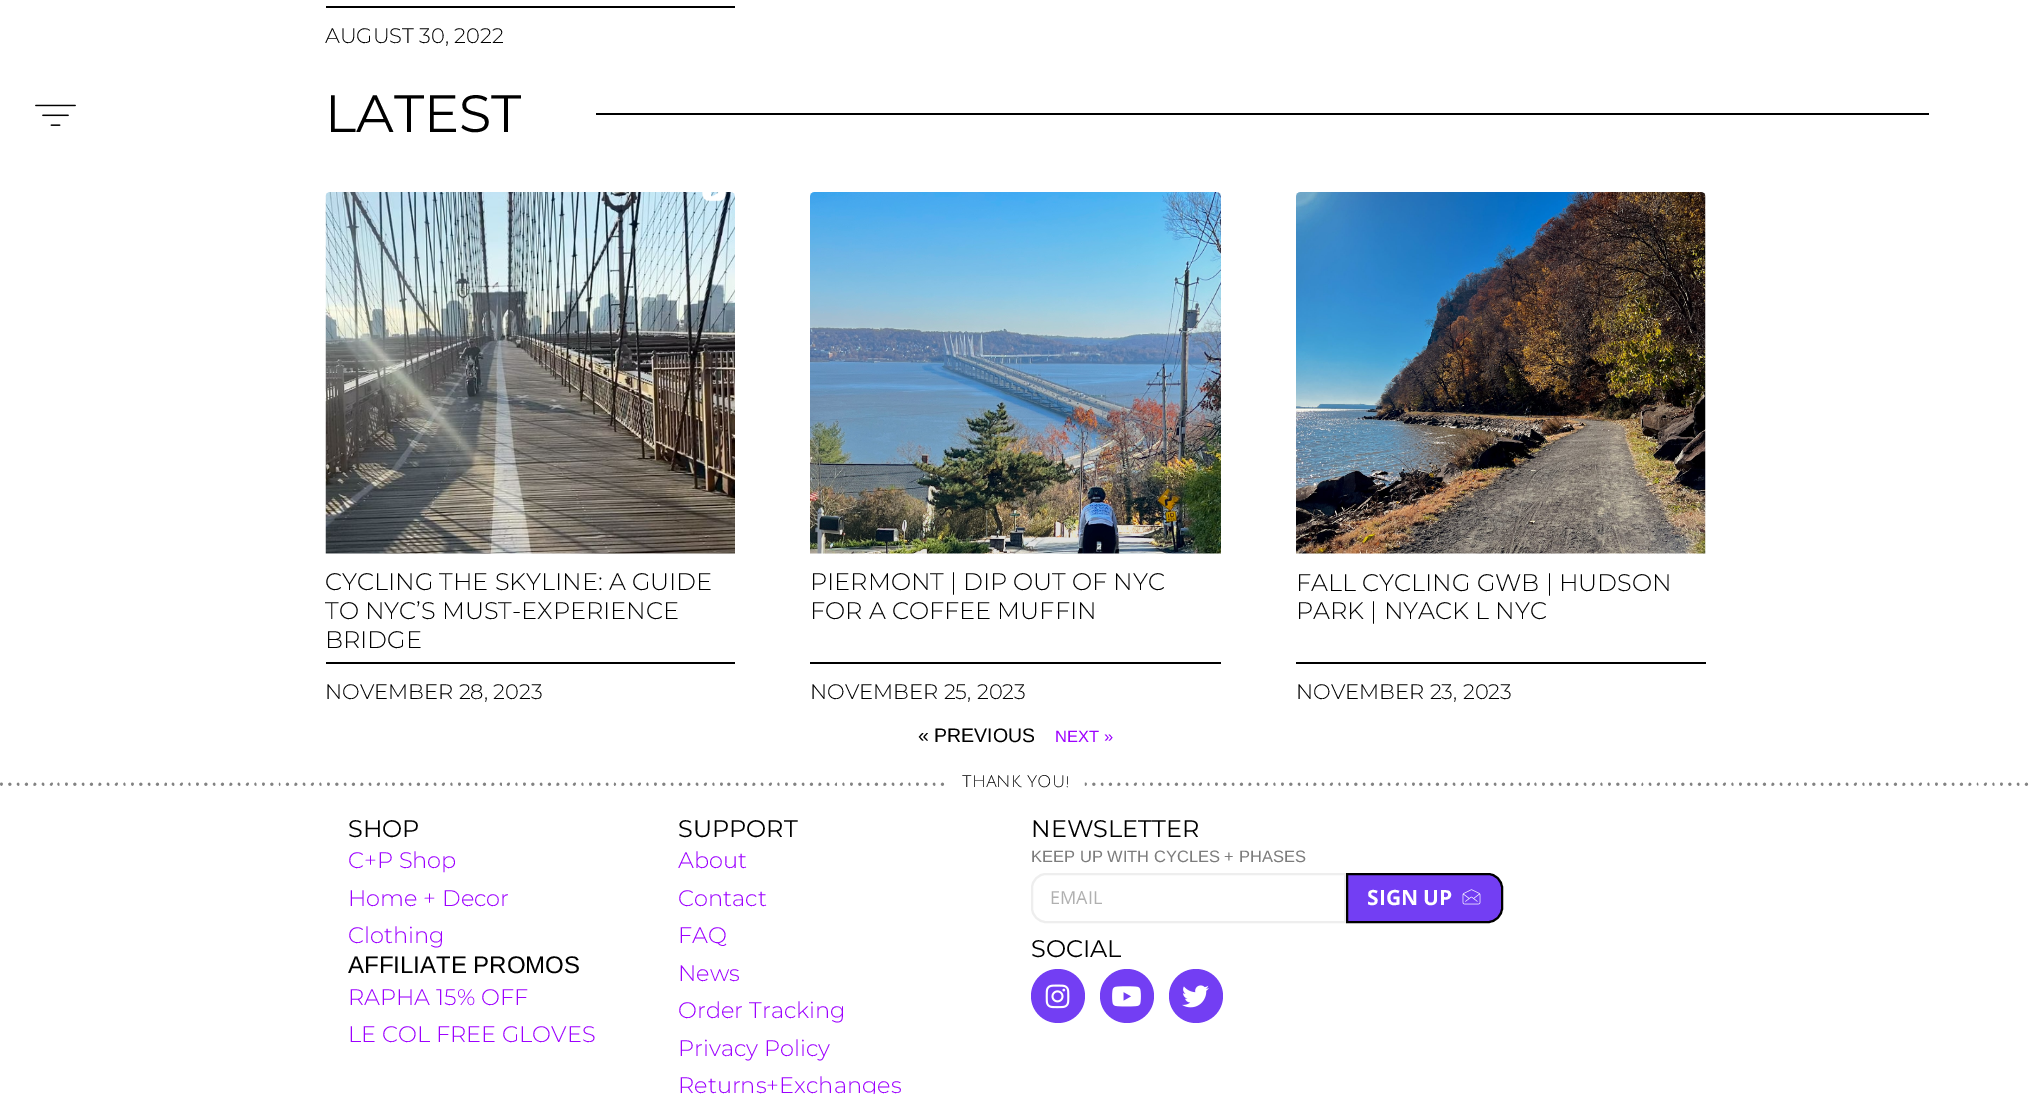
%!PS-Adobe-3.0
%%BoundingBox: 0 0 2031 1094
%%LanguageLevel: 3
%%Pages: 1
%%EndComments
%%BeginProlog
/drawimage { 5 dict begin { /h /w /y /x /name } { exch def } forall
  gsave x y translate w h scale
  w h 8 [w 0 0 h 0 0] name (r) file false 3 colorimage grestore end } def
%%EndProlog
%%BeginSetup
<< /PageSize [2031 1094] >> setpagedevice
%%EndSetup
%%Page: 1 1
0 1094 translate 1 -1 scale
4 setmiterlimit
1 setgray
0 0 2031 1094 rectfill
(images/1.raw) 35 104 41 22 drawimage
0 setgray
326 6 409 2 rectfill
596 113 1333 2 rectfill
(images/2.raw) 325 192 410 362 drawimage
326 662 409 2 rectfill
(images/3.raw) 810 192 411 362 drawimage
810 662 411 2 rectfill
(images/4.raw) 1296 192 410 362 drawimage
1296 662 410 2 rectfill
(images/5.raw) 0 782 945 4 drawimage
(images/6.raw) 1084 782 945 4 drawimage
0.933 setgray
2 setlinewidth
newpath 1046 874 moveto 1345 874 lineto 1345 922 lineto 1046 922 lineto 1038.5 922 1032 915.5 1032 908 curveto 1032 888 lineto 1032 880.5 1038.5 874 1046 874 curveto closepath stroke
0.451 0.243 0.953 setrgbcolor
newpath 1347 874 moveto 1488 874 lineto 1495.5 874 1502 880.5 1502 888 curveto 1502 908 lineto 1502 915.5 1495.5 922 1488 922 curveto 1347 922 lineto closepath gsave fill grestore
0 setgray
stroke
(images/7.raw) 1462 889 19 16 drawimage
0.451 0.243 0.953 setrgbcolor
newpath 1058 996 27 0 360 arc closepath fill
(images/8.raw) 1045 984 25 25 drawimage
newpath 1127 996 27 0 360 arc closepath fill
(images/9.raw) 1112 986 29 21 drawimage
newpath 1196 996 27 0 360 arc closepath fill
(images/10.raw) 1182 985 27 23 drawimage
/Montserrat-Light [21 0 0 -21 0 0] selectfont
0 setgray
325 43 moveto (AUGUST 30, 2022) show
/Montserrat-Regular [52.5 0 0 -52.5 0 0] selectfont
325 132 moveto (LATEST) show
/Montserrat-Light [24 0 0 -24 0 0] selectfont
325 590 moveto (CYCLING THE SKYLINE: A GUIDE) show
325 619 moveto (TO NYC’S MUST-EXPERIENCE) show
325 648 moveto (BRIDGE) show
/Montserrat-Light [21 0 0 -21 0 0] selectfont
325 699 moveto (NOVEMBER 28, 2023) show
/Montserrat-Light [24 0 0 -24 0 0] selectfont
810 590 moveto (PIERMONT | DIP OUT OF NYC) show
810 619 moveto (FOR A COFFEE MUFFIN) show
/Montserrat-Light [21 0 0 -21 0 0] selectfont
810 699 moveto (NOVEMBER 25, 2023) show
/Montserrat-Light [24 0 0 -24 0 0] selectfont
1296 591 moveto (FALL CYCLING GWB | HUDSON) show
1296 619 moveto (PARK | NYACK L NYC) show
/Montserrat-Light [21 0 0 -21 0 0] selectfont
1296 699 moveto (NOVEMBER 23, 2023) show
/LiberationSans-Regular [19.5 0 0 -19.5 0 0] selectfont
918 742 moveto (« PREVIOUS) show
/LiberationSans-Regular [16.5 0 0 -16.5 0 0] selectfont
0.616 0 1 setrgbcolor
1055 742 moveto (NEXT ») show
/JuliusSansOne-Regular [16.5 0 0 -16.5 0 0] selectfont
0 setgray
962 787 moveto (THANK YOU!) show
/Montserrat-Regular [24 0 0 -24 0 0] selectfont
348 837 moveto (SHOP) show
/Montserrat-Light [22.5 0 0 -22.5 0 0] selectfont
0.616 0 1 setrgbcolor
348 868 moveto (C+P Shop) show
348 906 moveto (Home + Decor) show
348 943 moveto (Clothing) show
/LiberationSans-Regular [24 0 0 -24 0 0] selectfont
0 setgray
348 973 moveto (AFFILIATE PROMOS) show
/Montserrat-Light [22.5 0 0 -22.5 0 0] selectfont
0.616 0 1 setrgbcolor
348 1005 moveto (RAPHA 15% OFF) show
348 1042 moveto (LE COL FREE GLOVES) show
/Montserrat-Regular [24 0 0 -24 0 0] selectfont
0 setgray
678 837 moveto (SUPPORT) show
/Montserrat-Light [22.5 0 0 -22.5 0 0] selectfont
0.616 0 1 setrgbcolor
678 868 moveto (About) show
678 906 moveto (Contact) show
678 943 moveto (FAQ) show
678 981 moveto (News) show
678 1018 moveto (Order Tracking) show
678 1056 moveto (Privacy Policy) show
678 1093 moveto (Returns+Exchanges) show
/Montserrat-Regular [24 0 0 -24 0 0] selectfont
0 setgray
1031 837 moveto (NEWSLETTER) show
/LiberationSans-Regular [16.5 0 0 -16.5 0 0] selectfont
0.486 setgray
1031 862 moveto (KEEP UP WITH CYCLES + PHASES) show
/OpenSans-Regular [18 0 0 -18 0 0] selectfont
0.69 setgray
1050 904 moveto (EMAIL) show
/OpenSans-Bold [21 0 0 -21 0 0] selectfont
1 setgray
1367 905 moveto (SIGN UP) show
/Montserrat-Regular [24 0 0 -24 0 0] selectfont
0 setgray
1031 957 moveto (SOCIAL) show
showpage
%%EOF
